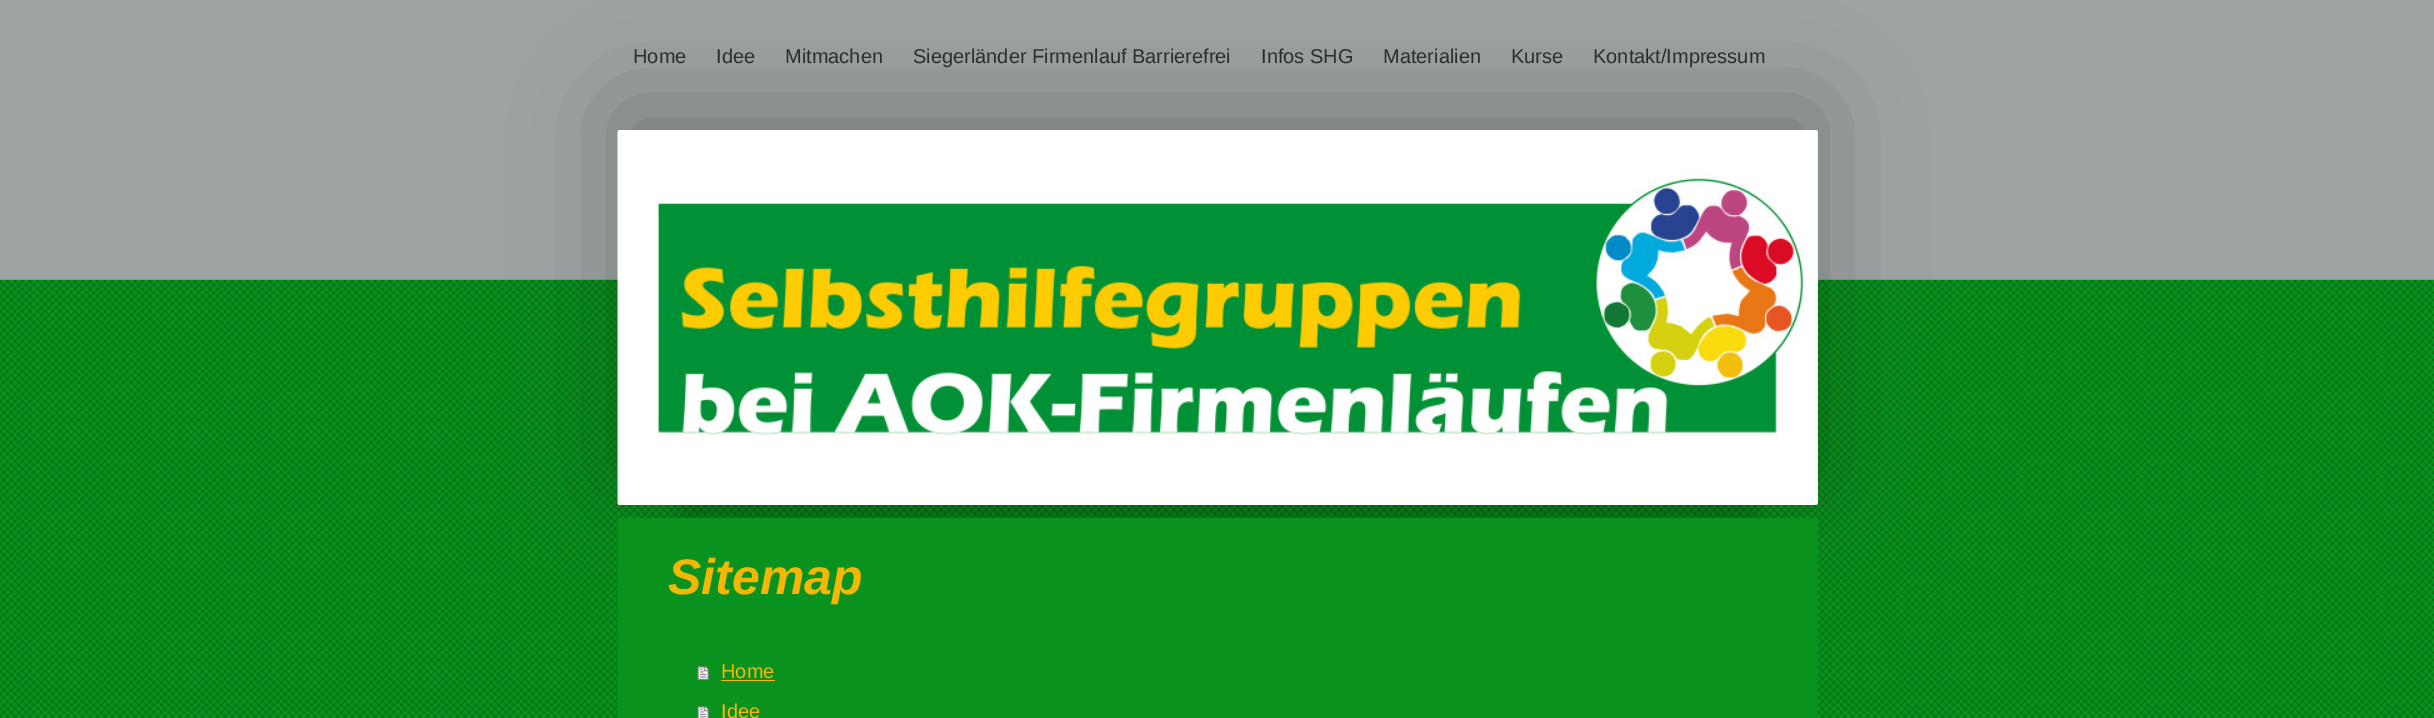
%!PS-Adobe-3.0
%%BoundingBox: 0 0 2434 718
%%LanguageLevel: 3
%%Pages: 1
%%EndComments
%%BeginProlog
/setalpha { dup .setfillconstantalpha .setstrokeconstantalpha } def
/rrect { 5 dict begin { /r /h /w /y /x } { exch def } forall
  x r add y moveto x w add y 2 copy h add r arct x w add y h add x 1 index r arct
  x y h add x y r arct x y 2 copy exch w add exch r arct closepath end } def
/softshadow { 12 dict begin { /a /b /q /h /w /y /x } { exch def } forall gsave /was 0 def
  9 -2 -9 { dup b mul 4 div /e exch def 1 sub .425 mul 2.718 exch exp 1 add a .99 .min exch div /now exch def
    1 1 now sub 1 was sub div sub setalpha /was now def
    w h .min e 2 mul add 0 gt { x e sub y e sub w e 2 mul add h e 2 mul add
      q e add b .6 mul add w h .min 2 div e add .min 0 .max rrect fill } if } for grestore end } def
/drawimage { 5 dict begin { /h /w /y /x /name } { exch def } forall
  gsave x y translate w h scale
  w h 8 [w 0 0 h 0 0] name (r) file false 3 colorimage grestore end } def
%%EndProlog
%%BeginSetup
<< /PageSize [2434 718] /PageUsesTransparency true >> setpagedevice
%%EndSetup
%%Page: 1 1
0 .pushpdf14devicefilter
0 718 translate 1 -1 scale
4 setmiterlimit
0.039 0.573 0.118 setrgbcolor
0 0 2434 718 rectfill
(images/1.raw) 0 280 2434 438 drawimage
0.62 0.635 0.635 setrgbcolor
0 0 2434 279 rectfill
0.545 0.565 0.565 setrgbcolor
0 279 2434 1 rectfill
0 setgray
618 105 1200 375 2.5 50 0.24 softshadow
680 273 1075 250 0 12.5 0.18 softshadow
(images/2.raw) 617 130 1201 375 drawimage
0.933 setgray
618 130 1200 375 2.5 rrect fill
(images/3.raw) 617 130 1201 375 drawimage
0.039 0.573 0.118 setrgbcolor
618 518 1200 200 rectfill
(images/4.raw) 697 666 12 14 drawimage
0.957 0.718 0.024 setrgbcolor
721 680 54 1 rectfill
(images/5.raw) 697 706 12 12 drawimage
/LiberationSans-Regular [20 0 0 -20 0 0] selectfont
0.173 0.18 0.18 setrgbcolor
633 63 moveto (Home) show
716 63 moveto (Idee) show
785 63 moveto (Mitmachen) show
913 63 moveto (Siegerländer Firmenlauf Barrierefrei) show
1261 63 moveto (Infos SHG) show
1383 63 moveto (Materialien) show
1511 63 moveto (Kurse) show
1593 63 moveto (Kontakt/Impressum) show
/LiberationSans-BoldItalic [50 0 0 -50 0 0] selectfont
0.957 0.718 0.024 setrgbcolor
668 594 moveto (Sitemap) show
/LiberationSans-Regular [20 0 0 -20 0 0] selectfont
721 678 moveto (Home) show
721 718 moveto (Idee) show
.poppdf14devicefilter showpage
%%EOF
